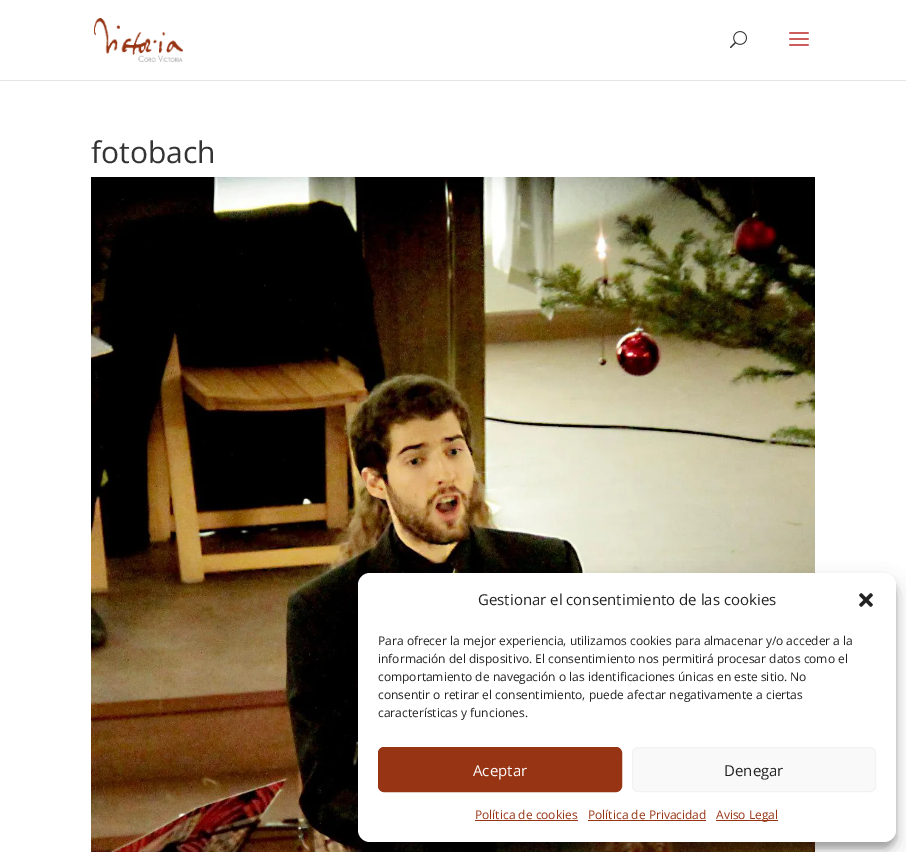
%!PS-Adobe-3.0
%%BoundingBox: 0 0 906 852
%%LanguageLevel: 3
%%Pages: 1
%%EndComments
%%BeginProlog
/setalpha { dup .setfillconstantalpha .setstrokeconstantalpha } def
/rrect { 5 dict begin { /r /h /w /y /x } { exch def } forall
  x r add y moveto x w add y 2 copy h add r arct x w add y h add x 1 index r arct
  x y h add x y r arct x y 2 copy exch w add exch r arct closepath end } def
/softshadow { 12 dict begin { /a /b /q /h /w /y /x } { exch def } forall gsave /was 0 def
  9 -2 -9 { dup b mul 4 div /e exch def 1 sub .425 mul 2.718 exch exp 1 add a .99 .min exch div /now exch def
    1 1 now sub 1 was sub div sub setalpha /was now def
    w h .min e 2 mul add 0 gt { x e sub y e sub w e 2 mul add h e 2 mul add
      q e add b .6 mul add w h .min 2 div e add .min 0 .max rrect fill } if } for grestore end } def
/drawimage { 5 dict begin { /h /w /y /x /name } { exch def } forall
  gsave x y translate w h scale
  w h 8 [w 0 0 h 0 0] name (r) file false 3 colorimage grestore end } def
%%EndProlog
%%BeginSetup
<< /PageSize [906 852] /PageUsesTransparency true >> setpagedevice
%%EndSetup
%%Page: 1 1
0 .pushpdf14devicefilter
0 852 translate 1 -1 scale
4 setmiterlimit
1 setgray
0 0 906 852 rectfill
0.902 setgray
0 80 906 1 rectfill
(images/1.raw) 94 18 89 44 drawimage
(images/2.raw) 730 31 17 18 drawimage
(images/3.raw) 789 32 20 14 drawimage
(images/4.raw) 91 177 724 675 drawimage
0 setgray
358 579 538 269 12 3 0.23 softshadow
358 583 538 269 12 10 0.19 softshadow
1 setgray
358 573 538 269 12 rrect fill
(images/5.raw) 859 593 14 14 drawimage
0.592 0.204 0.078 setrgbcolor
378.5 747.5 243 44 5.5 rrect gsave fill grestore
stroke
0.976 setgray
632.5 747.5 243 44 5.5 rrect gsave fill grestore
0.949 setgray
stroke
0.592 0.204 0.078 setrgbcolor
475 820 103 1 rectfill
588 820 118 1 rectfill
716 820 62 1 rectfill
/OpenSans-Regular [30 0 0 -30 0 0] selectfont
0.2 setgray
91 163 moveto (fotobach) show
/OpenSans-Regular [15 0 0 -15 0 0] selectfont
0.133 setgray
478 605 moveto (Gestionar el consentimiento de las cookies) show
/OpenSans-Regular [12 0 0 -12 0 0] selectfont
378 645 moveto (Para ofrecer la mejor experiencia, utilizamos cookies para almacenar y/o acceder a la) show
378 663 moveto (información del dispositivo. El consentimiento nos permitirá procesar datos como el) show
378 681 moveto (comportamiento de navegación o las identificaciones únicas en este sitio. No) show
378 699 moveto (consentir o retirar el consentimiento, puede afectar negativamente a ciertas) show
378 717 moveto (características y funciones.) show
/OpenSans-Regular [15 0 0 -15 0 0] selectfont
1 setgray
473 776 moveto (Aceptar) show
0.133 setgray
724 776 moveto (Denegar) show
/OpenSans-Regular [12 0 0 -12 0 0] selectfont
0.592 0.204 0.078 setrgbcolor
475 819 moveto (Política de cookies) show
588 819 moveto (Política de Privacidad) show
716 819 moveto (Aviso Legal) show
.poppdf14devicefilter showpage
%%EOF
